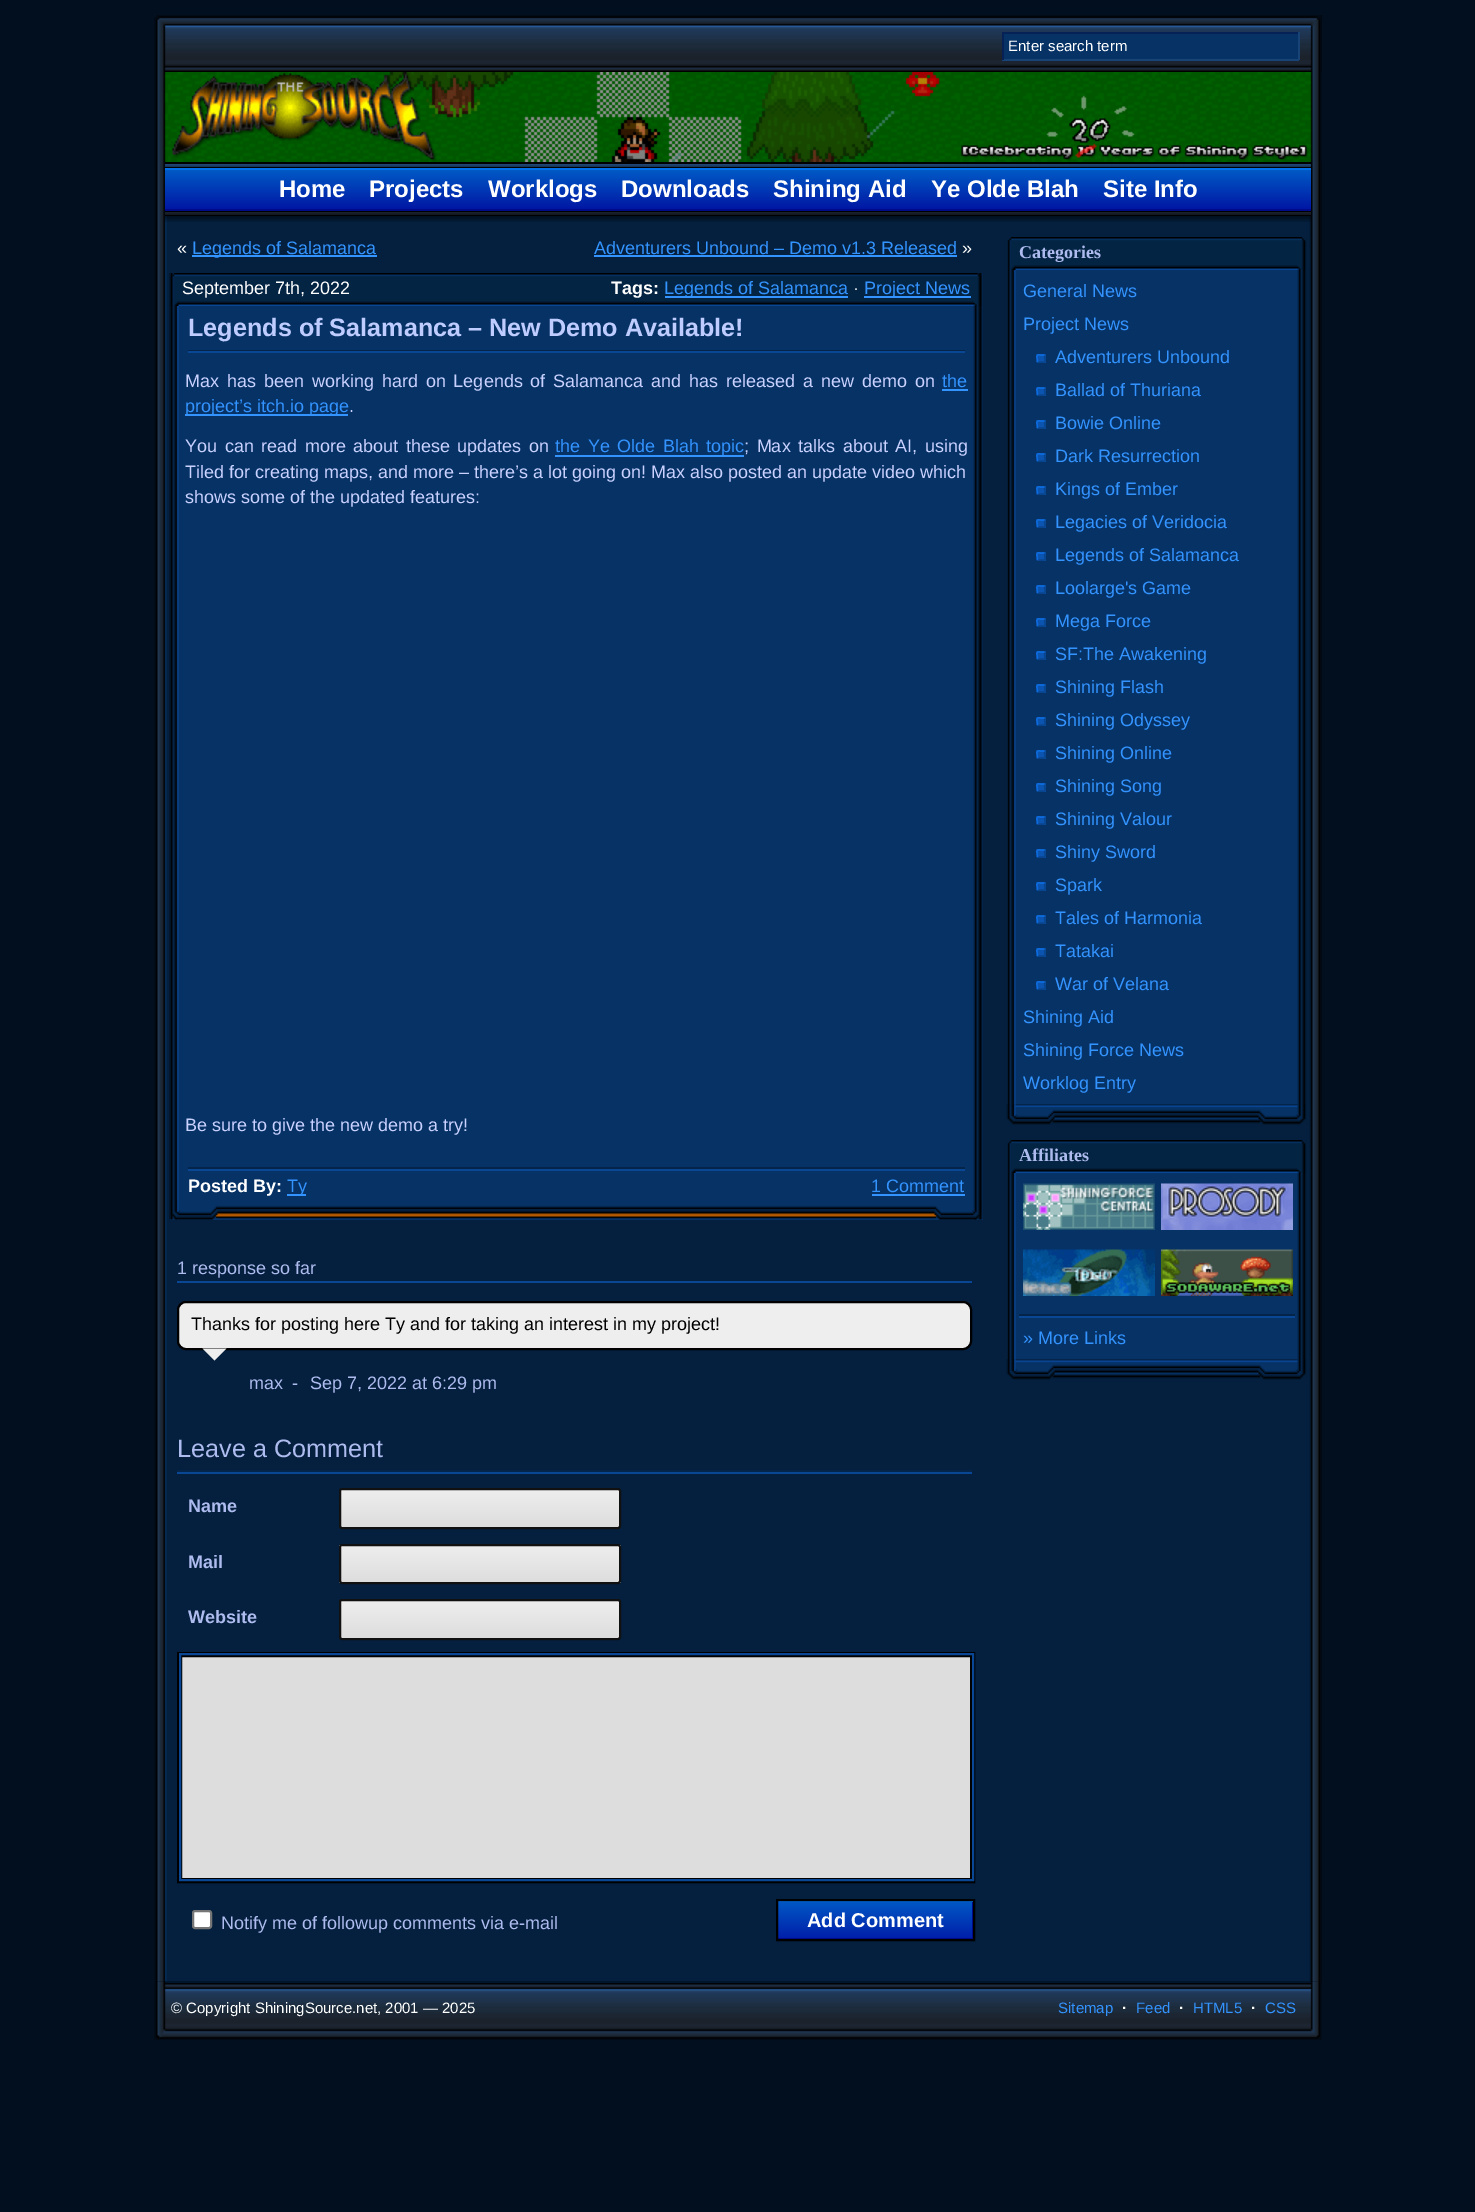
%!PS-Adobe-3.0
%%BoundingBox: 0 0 1475 2212
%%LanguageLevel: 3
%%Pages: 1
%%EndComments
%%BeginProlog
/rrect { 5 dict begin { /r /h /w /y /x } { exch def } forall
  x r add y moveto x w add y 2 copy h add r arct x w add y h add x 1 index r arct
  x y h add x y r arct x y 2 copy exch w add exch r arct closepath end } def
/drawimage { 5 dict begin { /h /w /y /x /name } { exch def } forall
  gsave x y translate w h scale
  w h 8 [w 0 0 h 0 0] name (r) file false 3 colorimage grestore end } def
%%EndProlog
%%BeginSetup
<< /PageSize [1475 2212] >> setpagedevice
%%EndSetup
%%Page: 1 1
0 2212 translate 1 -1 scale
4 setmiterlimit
0.008 0.059 0.118 setrgbcolor
0 0 1475 2212 rectfill
0.004 0.024 0.047 setrgbcolor
1321 15 1 57 rectfill
(images/1.raw) 154 15 1168 57 drawimage
0.024 0.196 0.4 setrgbcolor
1004 34 294 25 rectfill
0.02 0.129 0.333 setrgbcolor
1002 32 297 2 rectfill
0.09 0.263 0.467 setrgbcolor
1298 32 2 28 rectfill
1002 59 297 2 rectfill
0.02 0.129 0.333 setrgbcolor
1002 32 2 28 rectfill
(images/2.raw) 154 72 1168 90 drawimage
0.004 0.024 0.047 setrgbcolor
1321 162 1 75 rectfill
(images/3.raw) 154 162 1168 75 drawimage
gsave newpath 165 164 moveto 1311 164 lineto 1311 167 lineto 165 167 lineto closepath clip newpath
<< /ShadingType 2 /ColorSpace /DeviceRGB /Coords [165 164 165 167] /Extend [true true] /Function << /FunctionType 2 /Domain [0 1] /C0 [0.129 0.286 0.478] /C1 [0.094 0.208 0.345] /N 1 >> >> shfill grestore
0 setgray
165 162 1146 2 rectfill
165 167 1146 1 rectfill
gsave newpath 165 170 moveto 1311 170 lineto 1311 209 lineto 165 209 lineto closepath clip newpath
<< /ShadingType 2 /ColorSpace /DeviceRGB /Coords [165 168 165 210] /Extend [true true] /Function << /FunctionType 2 /Domain [0 1] /C0 [0 0.365 0.784] /C1 [0 0.082 0.639] /N 1 >> >> shfill grestore
0 0.043 0.541 setrgbcolor
165 209 1146 2 rectfill
0 0.439 0.918 setrgbcolor
165 168 1146 2 rectfill
gsave newpath 165 212 moveto 1311 212 lineto 1311 215 lineto 165 215 lineto closepath clip newpath
<< /ShadingType 2 /ColorSpace /DeviceRGB /Coords [165 212 165 215] /Extend [true true] /Function << /FunctionType 2 /Domain [0 1] /C0 [0.106 0.133 0.173] /C1 [0.075 0.094 0.125] /N 1 >> >> shfill grestore
0 setgray
165 211 1146 1 rectfill
165 215 1146 1 rectfill
0.004 0.024 0.047 setrgbcolor
155 237 1167 1745 rectfill
(images/4.raw) 154 237 1168 1745 drawimage
0.2 0.576 1 setrgbcolor
192 255 185 2 rectfill
594 255 363 2 rectfill
0.024 0.196 0.4 setrgbcolor
170 273 813 947 rectfill
(images/5.raw) 169 273 814 947 drawimage
(images/6.raw) 170 273 812 33 drawimage
0.2 0.576 1 setrgbcolor
665 296 183 2 rectfill
864 296 107 2 rectfill
0.016 0.141 0.29 setrgbcolor
188 350 777 1 rectfill
0.035 0.278 0.584 setrgbcolor
188 351 777 2 rectfill
0.2 0.576 1 setrgbcolor
942 389 26 2 rectfill
185 414 163 2 rectfill
555 455 189 2 rectfill
0.016 0.141 0.29 setrgbcolor
188 1167 777 2 rectfill
0.035 0.278 0.584 setrgbcolor
188 1169 777 2 rectfill
0.2 0.576 1 setrgbcolor
287 1194 19 2 rectfill
872 1194 93 2 rectfill
(images/7.raw) 170 1200 812 20 drawimage
0.035 0.278 0.584 setrgbcolor
177 1281 795 2 rectfill
0.933 setgray
178 1302 793 47 8 rrect gsave fill grestore
0 setgray
2 setlinewidth
stroke
0.933 setgray
newpath 202.5 1348.5 moveto 226.5 1348.5 lineto 214.5 1360.5 lineto closepath fill
0.016 0.141 0.29 setrgbcolor
177 1470 795 2 rectfill
0.035 0.278 0.584 setrgbcolor
177 1472 795 2 rectfill
gsave
339 1488 282 41 3 rrect clip newpath
gsave newpath 339 1490 moveto 621 1490 lineto 621 1527 lineto 339 1527 lineto closepath clip newpath
<< /ShadingType 2 /ColorSpace /DeviceRGB /Coords [341 1490 341 1527] /Extend [true true] /Function << /FunctionType 2 /Domain [0 1] /C0 [0.933 0.933 0.933] /C1 [0.867 0.867 0.867] /N 1 >> >> shfill grestore
grestore
0.067 setgray
340 1489 280 39 2 rrect stroke
gsave
339 1544 282 40 3 rrect clip newpath
gsave newpath 339 1545 moveto 621 1545 lineto 621 1583 lineto 339 1583 lineto closepath clip newpath
<< /ShadingType 2 /ColorSpace /DeviceRGB /Coords [341 1545 341 1583] /Extend [true true] /Function << /FunctionType 2 /Domain [0 1] /C0 [0.933 0.933 0.933] /C1 [0.867 0.867 0.867] /N 1 >> >> shfill grestore
grestore
340 1545 280 38 2 rrect stroke
gsave
339 1599 282 41 3 rrect clip newpath
gsave newpath 339 1601 moveto 621 1601 lineto 621 1638 lineto 339 1638 lineto closepath clip newpath
<< /ShadingType 2 /ColorSpace /DeviceRGB /Coords [341 1601 341 1638] /Extend [true true] /Function << /FunctionType 2 /Domain [0 1] /C0 [0.933 0.933 0.933] /C1 [0.867 0.867 0.867] /N 1 >> >> shfill grestore
grestore
340 1600 280 39 2 rrect stroke
0 setgray
3 setlinewidth
178.5 1653.5 795 228 rectstroke
0.867 setgray
newpath 181 1656 moveto 971 1656 lineto 971 1879 lineto 181 1879 lineto closepath gsave fill grestore
0 setgray
2 setlinewidth
stroke
0.035 0.278 0.584 setrgbcolor
180 1654 793 226 rectstroke
1 setgray
193 1911 18 17 2 rrect gsave fill grestore
0.463 setgray
stroke
gsave newpath 778 1902 moveto 972 1902 lineto 972 1938 lineto 778 1938 lineto closepath clip newpath
<< /ShadingType 2 /ColorSpace /DeviceRGB /Coords [777 1901 777 1940] /Extend [true true] /Function << /FunctionType 2 /Domain [0 1] /C0 [0 0.349 0.773] /C1 [0 0.114 0.659] /N 1 >> >> shfill grestore
gsave
777 1901 197 39 rectclip
0 0.043 0.541 setrgbcolor
newpath 628 1752 moveto 1122 1752 lineto 1122 2088 lineto 628 2088 lineto closepath 776 1899 moveto 972 1899 lineto 972 1938 lineto 776 1938 lineto closepath eofill
0 0.439 0.918 setrgbcolor
newpath 628 1752 moveto 1122 1752 lineto 1122 2088 lineto 628 2088 lineto closepath 778 1902 moveto 975 1902 lineto 975 1941 lineto 778 1941 lineto closepath eofill
grestore
0 setgray
777 1900 197 40 rectstroke
(images/8.raw) 1007 237 300 888 drawimage
(images/9.raw) 1007 237 299 33 drawimage
0.043 0.333 0.69 setrgbcolor
1037 354 9 9 1.5 rrect fill
0.035 0.271 0.557 setrgbcolor
1.5 setlinewidth
newpath 1044.5 355 moveto 1045 358.5 lineto 1045 363 1045.5 362 1041 362 curveto 1037.5 362 lineto stroke
0.055 0.42 0.871 setrgbcolor
newpath 1037.5 362 moveto 1037 358.5 lineto 1037 354 1036.5 355 1041 355 curveto 1044.5 355 lineto stroke
0.043 0.333 0.69 setrgbcolor
1037 387 9 9 1.5 rrect fill
0.035 0.271 0.557 setrgbcolor
newpath 1044.5 388 moveto 1045 391.5 lineto 1045 396 1045.5 395 1041 395 curveto 1037.5 395 lineto stroke
0.055 0.42 0.871 setrgbcolor
newpath 1037.5 395 moveto 1037 391.5 lineto 1037 387 1036.5 388 1041 388 curveto 1044.5 388 lineto stroke
0.043 0.333 0.69 setrgbcolor
1037 420 9 9 1.5 rrect fill
0.035 0.271 0.557 setrgbcolor
newpath 1044.5 421 moveto 1045 424.5 lineto 1045 429 1045.5 428 1041 428 curveto 1037.5 428 lineto stroke
0.055 0.42 0.871 setrgbcolor
newpath 1037.5 428 moveto 1037 424.5 lineto 1037 420 1036.5 421 1041 421 curveto 1044.5 421 lineto stroke
0.043 0.333 0.69 setrgbcolor
1037 453 9 9 1.5 rrect fill
0.035 0.271 0.557 setrgbcolor
newpath 1044.5 454 moveto 1045 457.5 lineto 1045 462 1045.5 461 1041 461 curveto 1037.5 461 lineto stroke
0.055 0.42 0.871 setrgbcolor
newpath 1037.5 461 moveto 1037 457.5 lineto 1037 453 1036.5 454 1041 454 curveto 1044.5 454 lineto stroke
0.043 0.333 0.69 setrgbcolor
1037 486 9 9 1.5 rrect fill
0.035 0.271 0.557 setrgbcolor
newpath 1044.5 487 moveto 1045 490.5 lineto 1045 495 1045.5 494 1041 494 curveto 1037.5 494 lineto stroke
0.055 0.42 0.871 setrgbcolor
newpath 1037.5 494 moveto 1037 490.5 lineto 1037 486 1036.5 487 1041 487 curveto 1044.5 487 lineto stroke
0.043 0.333 0.69 setrgbcolor
1037 519 9 9 1.5 rrect fill
0.035 0.271 0.557 setrgbcolor
newpath 1044.5 520 moveto 1045 523.5 lineto 1045 528 1045.5 527 1041 527 curveto 1037.5 527 lineto stroke
0.055 0.42 0.871 setrgbcolor
newpath 1037.5 527 moveto 1037 523.5 lineto 1037 519 1036.5 520 1041 520 curveto 1044.5 520 lineto stroke
0.043 0.333 0.69 setrgbcolor
1037 552 9 9 1.5 rrect fill
0.035 0.271 0.557 setrgbcolor
newpath 1044.5 553 moveto 1045 556.5 lineto 1045 561 1045.5 560 1041 560 curveto 1037.5 560 lineto stroke
0.055 0.42 0.871 setrgbcolor
newpath 1037.5 560 moveto 1037 556.5 lineto 1037 552 1036.5 553 1041 553 curveto 1044.5 553 lineto stroke
0.043 0.333 0.69 setrgbcolor
1037 585 9 9 1.5 rrect fill
0.035 0.271 0.557 setrgbcolor
newpath 1044.5 586 moveto 1045 589.5 lineto 1045 594 1045.5 593 1041 593 curveto 1037.5 593 lineto stroke
0.055 0.42 0.871 setrgbcolor
newpath 1037.5 593 moveto 1037 589.5 lineto 1037 585 1036.5 586 1041 586 curveto 1044.5 586 lineto stroke
0.043 0.333 0.69 setrgbcolor
1037 618 9 9 1.5 rrect fill
0.035 0.271 0.557 setrgbcolor
newpath 1044.5 619 moveto 1045 622.5 lineto 1045 627 1045.5 626 1041 626 curveto 1037.5 626 lineto stroke
0.055 0.42 0.871 setrgbcolor
newpath 1037.5 626 moveto 1037 622.5 lineto 1037 618 1036.5 619 1041 619 curveto 1044.5 619 lineto stroke
0.043 0.333 0.69 setrgbcolor
1037 651 9 9 1.5 rrect fill
0.035 0.271 0.557 setrgbcolor
newpath 1044.5 652 moveto 1045 655.5 lineto 1045 660 1045.5 659 1041 659 curveto 1037.5 659 lineto stroke
0.055 0.42 0.871 setrgbcolor
newpath 1037.5 659 moveto 1037 655.5 lineto 1037 651 1036.5 652 1041 652 curveto 1044.5 652 lineto stroke
0.043 0.333 0.69 setrgbcolor
1037 684 9 9 1.5 rrect fill
0.035 0.271 0.557 setrgbcolor
newpath 1044.5 685 moveto 1045 688.5 lineto 1045 693 1045.5 692 1041 692 curveto 1037.5 692 lineto stroke
0.055 0.42 0.871 setrgbcolor
newpath 1037.5 692 moveto 1037 688.5 lineto 1037 684 1036.5 685 1041 685 curveto 1044.5 685 lineto stroke
0.043 0.333 0.69 setrgbcolor
1037 717 9 9 1.5 rrect fill
0.035 0.271 0.557 setrgbcolor
newpath 1044.5 718 moveto 1045 721.5 lineto 1045 726 1045.5 725 1041 725 curveto 1037.5 725 lineto stroke
0.055 0.42 0.871 setrgbcolor
newpath 1037.5 725 moveto 1037 721.5 lineto 1037 717 1036.5 718 1041 718 curveto 1044.5 718 lineto stroke
0.043 0.333 0.69 setrgbcolor
1037 750 9 9 1.5 rrect fill
0.035 0.271 0.557 setrgbcolor
newpath 1044.5 751 moveto 1045 754.5 lineto 1045 759 1045.5 758 1041 758 curveto 1037.5 758 lineto stroke
0.055 0.42 0.871 setrgbcolor
newpath 1037.5 758 moveto 1037 754.5 lineto 1037 750 1036.5 751 1041 751 curveto 1044.5 751 lineto stroke
0.043 0.333 0.69 setrgbcolor
1037 783 9 9 1.5 rrect fill
0.035 0.271 0.557 setrgbcolor
newpath 1044.5 784 moveto 1045 787.5 lineto 1045 792 1045.5 791 1041 791 curveto 1037.5 791 lineto stroke
0.055 0.42 0.871 setrgbcolor
newpath 1037.5 791 moveto 1037 787.5 lineto 1037 783 1036.5 784 1041 784 curveto 1044.5 784 lineto stroke
0.043 0.333 0.69 setrgbcolor
1037 816 9 9 1.5 rrect fill
0.035 0.271 0.557 setrgbcolor
newpath 1044.5 817 moveto 1045 820.5 lineto 1045 825 1045.5 824 1041 824 curveto 1037.5 824 lineto stroke
0.055 0.42 0.871 setrgbcolor
newpath 1037.5 824 moveto 1037 820.5 lineto 1037 816 1036.5 817 1041 817 curveto 1044.5 817 lineto stroke
0.043 0.333 0.69 setrgbcolor
1037 849 9 9 1.5 rrect fill
0.035 0.271 0.557 setrgbcolor
newpath 1044.5 850 moveto 1045 853.5 lineto 1045 858 1045.5 857 1041 857 curveto 1037.5 857 lineto stroke
0.055 0.42 0.871 setrgbcolor
newpath 1037.5 857 moveto 1037 853.5 lineto 1037 849 1036.5 850 1041 850 curveto 1044.5 850 lineto stroke
0.043 0.333 0.69 setrgbcolor
1037 882 9 9 1.5 rrect fill
0.035 0.271 0.557 setrgbcolor
newpath 1044.5 883 moveto 1045 886.5 lineto 1045 891 1045.5 890 1041 890 curveto 1037.5 890 lineto stroke
0.055 0.42 0.871 setrgbcolor
newpath 1037.5 890 moveto 1037 886.5 lineto 1037 882 1036.5 883 1041 883 curveto 1044.5 883 lineto stroke
0.043 0.333 0.69 setrgbcolor
1037 915 9 9 1.5 rrect fill
0.035 0.271 0.557 setrgbcolor
newpath 1044.5 916 moveto 1045 919.5 lineto 1045 924 1045.5 923 1041 923 curveto 1037.5 923 lineto stroke
0.055 0.42 0.871 setrgbcolor
newpath 1037.5 923 moveto 1037 919.5 lineto 1037 915 1036.5 916 1041 916 curveto 1044.5 916 lineto stroke
0.043 0.333 0.69 setrgbcolor
1037 948 9 9 1.5 rrect fill
0.035 0.271 0.557 setrgbcolor
newpath 1044.5 949 moveto 1045 952.5 lineto 1045 957 1045.5 956 1041 956 curveto 1037.5 956 lineto stroke
0.055 0.42 0.871 setrgbcolor
newpath 1037.5 956 moveto 1037 952.5 lineto 1037 948 1036.5 949 1041 949 curveto 1044.5 949 lineto stroke
0.043 0.333 0.69 setrgbcolor
1037 981 9 9 1.5 rrect fill
0.035 0.271 0.557 setrgbcolor
newpath 1044.5 982 moveto 1045 985.5 lineto 1045 990 1045.5 989 1041 989 curveto 1037.5 989 lineto stroke
0.055 0.42 0.871 setrgbcolor
newpath 1037.5 989 moveto 1037 985.5 lineto 1037 981 1036.5 982 1041 982 curveto 1044.5 982 lineto stroke
(images/10.raw) 1006 1104 300 21 drawimage
(images/11.raw) 1007 1140 300 240 drawimage
(images/9.raw) 1007 1140 299 33 drawimage
(images/12.raw) 1023 1183 132 47 drawimage
(images/13.raw) 1161 1183 132 47 drawimage
(images/14.raw) 1023 1249 132 47 drawimage
(images/15.raw) 1161 1249 132 47 drawimage
0.016 0.141 0.29 setrgbcolor
1019 1314 276 2 rectfill
0.035 0.278 0.584 setrgbcolor
1019 1316 276 2 rectfill
(images/10.raw) 1006 1359 300 21 drawimage
(images/16.raw) 154 1981 1168 59 drawimage
/LiberationSans-Regular [15 0 0 -15 0 0] selectfont
1 setgray
1008 51 moveto (Enter search term) show
/LiberationSans-Bold [24 0 0 -24 0 0] selectfont
279 197 moveto (Home) show
369 197 moveto (Projects) show
488 197 moveto (Worklogs) show
621 197 moveto (Downloads) show
773 197 moveto (Shining Aid) show
931 197 moveto (Ye Olde Blah) show
1103 197 moveto (Site Info) show
/LiberationSans-Regular [18 0 0 -18 0 0] selectfont
177 254 moveto («) show
0.2 0.576 1 setrgbcolor
192 254 moveto (Legends of Salamanca) show
594 254 moveto (Adventurers Unbound – Demo v1.3 Released) show
1 setgray
962 254 moveto (») show
182 294 moveto (September 7th, 2022) show
/LiberationSans-Bold [18 0 0 -18 0 0] selectfont
611 294 moveto (Tags:) show
/LiberationSans-Regular [18 0 0 -18 0 0] selectfont
0.2 0.576 1 setrgbcolor
664 294 moveto (Legends of Salamanca) show
1 setgray
853 294 moveto (·) show
0.2 0.576 1 setrgbcolor
864 294 moveto (Project News) show
/LiberationSans-Bold [25.2 0 0 -25.2 0 0] selectfont
0.749 0.8 1 setrgbcolor
188 336 moveto (Legends of Salamanca – New Demo Available!) show
/LiberationSans-Regular [18 0 0 -18 0 0] selectfont
0.788 0.82 1 setrgbcolor
185 387 moveto 2.9 0 32 (Max has been working hard on Legends of Salamanca and has released a new demo on) widthshow
0.2 0.576 1 setrgbcolor
942 387 moveto (the) show
185 412 moveto (project’s itch.io page) show
0.788 0.82 1 setrgbcolor
349 412 moveto (.) show
185 452 moveto 2.5 0 32 (You can read more about these updates on) widthshow
0.2 0.576 1 setrgbcolor
555 452 moveto 2.5 0 32 (the Ye Olde Blah topic) widthshow
0.788 0.82 1 setrgbcolor
744 452 moveto 2.5 0 32 (; Max talks about AI, using) widthshow
185 478 moveto (Tiled for creating maps, and more – there’s a lot going on! Max also posted an update video which) show
185 503 moveto (shows some of the updated features:) show
185 1131 moveto (Be sure to give the new demo a try!) show
/LiberationSans-Bold [18 0 0 -18 0 0] selectfont
1 setgray
188 1192 moveto (Posted By:) show
/LiberationSans-Regular [18 0 0 -18 0 0] selectfont
0.2 0.576 1 setrgbcolor
287 1192 moveto (Ty) show
871 1192 moveto (1 Comment) show
0.682 0.733 0.933 setrgbcolor
177 1274 moveto (1 response so far) show
0 setgray
191 1330 moveto (Thanks for posting here Ty and for taking an interest in my project!) show
0.682 0.733 0.933 setrgbcolor
249 1389 moveto (max) show
292 1389 moveto (-) show
310 1389 moveto (Sep 7, 2022 at 6:29 pm) show
/LiberationSans-Regular [25.2 0 0 -25.2 0 0] selectfont
177 1457 moveto (Leave a Comment) show
/LiberationSans-Bold [18 0 0 -18 0 0] selectfont
188 1512 moveto (Name) show
188 1568 moveto (Mail) show
188 1623 moveto (Website) show
/LiberationSans-Regular [18 0 0 -18 0 0] selectfont
221 1929 moveto (Notify me of followup comments via e-mail) show
/LiberationSans-Bold [20 0 0 -20 0 0] selectfont
1 setgray
807 1927 moveto (Add Comment) show
/LiberationSerif-Bold [18 0 0 -18 0 0] selectfont
0.682 0.733 0.933 setrgbcolor
1019 258 moveto (Categories) show
/LiberationSans-Regular [18 0 0 -18 0 0] selectfont
0.2 0.576 1 setrgbcolor
1023 297 moveto (General News) show
1023 330 moveto (Project News) show
1055 363 moveto (Adventurers Unbound) show
1055 396 moveto (Ballad of Thuriana) show
1055 429 moveto (Bowie Online) show
1055 462 moveto (Dark Resurrection) show
1055 495 moveto (Kings of Ember) show
1055 528 moveto (Legacies of Veridocia) show
1055 561 moveto (Legends of Salamanca) show
1055 594 moveto (Loolarge's Game) show
1055 627 moveto (Mega Force) show
1055 660 moveto (SF:The Awakening) show
1055 693 moveto (Shining Flash) show
1055 726 moveto (Shining Odyssey) show
1055 759 moveto (Shining Online) show
1055 792 moveto (Shining Song) show
1055 825 moveto (Shining Valour) show
1055 858 moveto (Shiny Sword) show
1055 891 moveto (Spark) show
1055 924 moveto (Tales of Harmonia) show
1055 957 moveto (Tatakai) show
1055 990 moveto (War of Velana) show
1023 1023 moveto (Shining Aid) show
1023 1056 moveto (Shining Force News) show
1023 1089 moveto (Worklog Entry) show
/LiberationSerif-Bold [18 0 0 -18 0 0] selectfont
0.682 0.733 0.933 setrgbcolor
1019 1161 moveto (Affiliates) show
/LiberationSans-Regular [18 0 0 -18 0 0] selectfont
0.2 0.576 1 setrgbcolor
1023 1344 moveto (» More Links) show
/LiberationSans-Regular [15 0 0 -15 0 0] selectfont
1 setgray
171 2013 moveto (© Copyright ShiningSource.net, 2001 — 2025) show
0.2 0.576 1 setrgbcolor
1058 2013 moveto (Sitemap) show
/LiberationSans-Bold [15 0 0 -15 0 0] selectfont
1 setgray
1122 2013 moveto (·) show
/LiberationSans-Regular [15 0 0 -15 0 0] selectfont
0.2 0.576 1 setrgbcolor
1136 2013 moveto (Feed) show
/LiberationSans-Bold [15 0 0 -15 0 0] selectfont
1 setgray
1179 2013 moveto (·) show
/LiberationSans-Regular [15 0 0 -15 0 0] selectfont
0.2 0.576 1 setrgbcolor
1193 2013 moveto (HTML5) show
/LiberationSans-Bold [15 0 0 -15 0 0] selectfont
1 setgray
1251 2013 moveto (·) show
/LiberationSans-Regular [15 0 0 -15 0 0] selectfont
0.2 0.576 1 setrgbcolor
1265 2013 moveto (CSS) show
showpage
%%EOF
